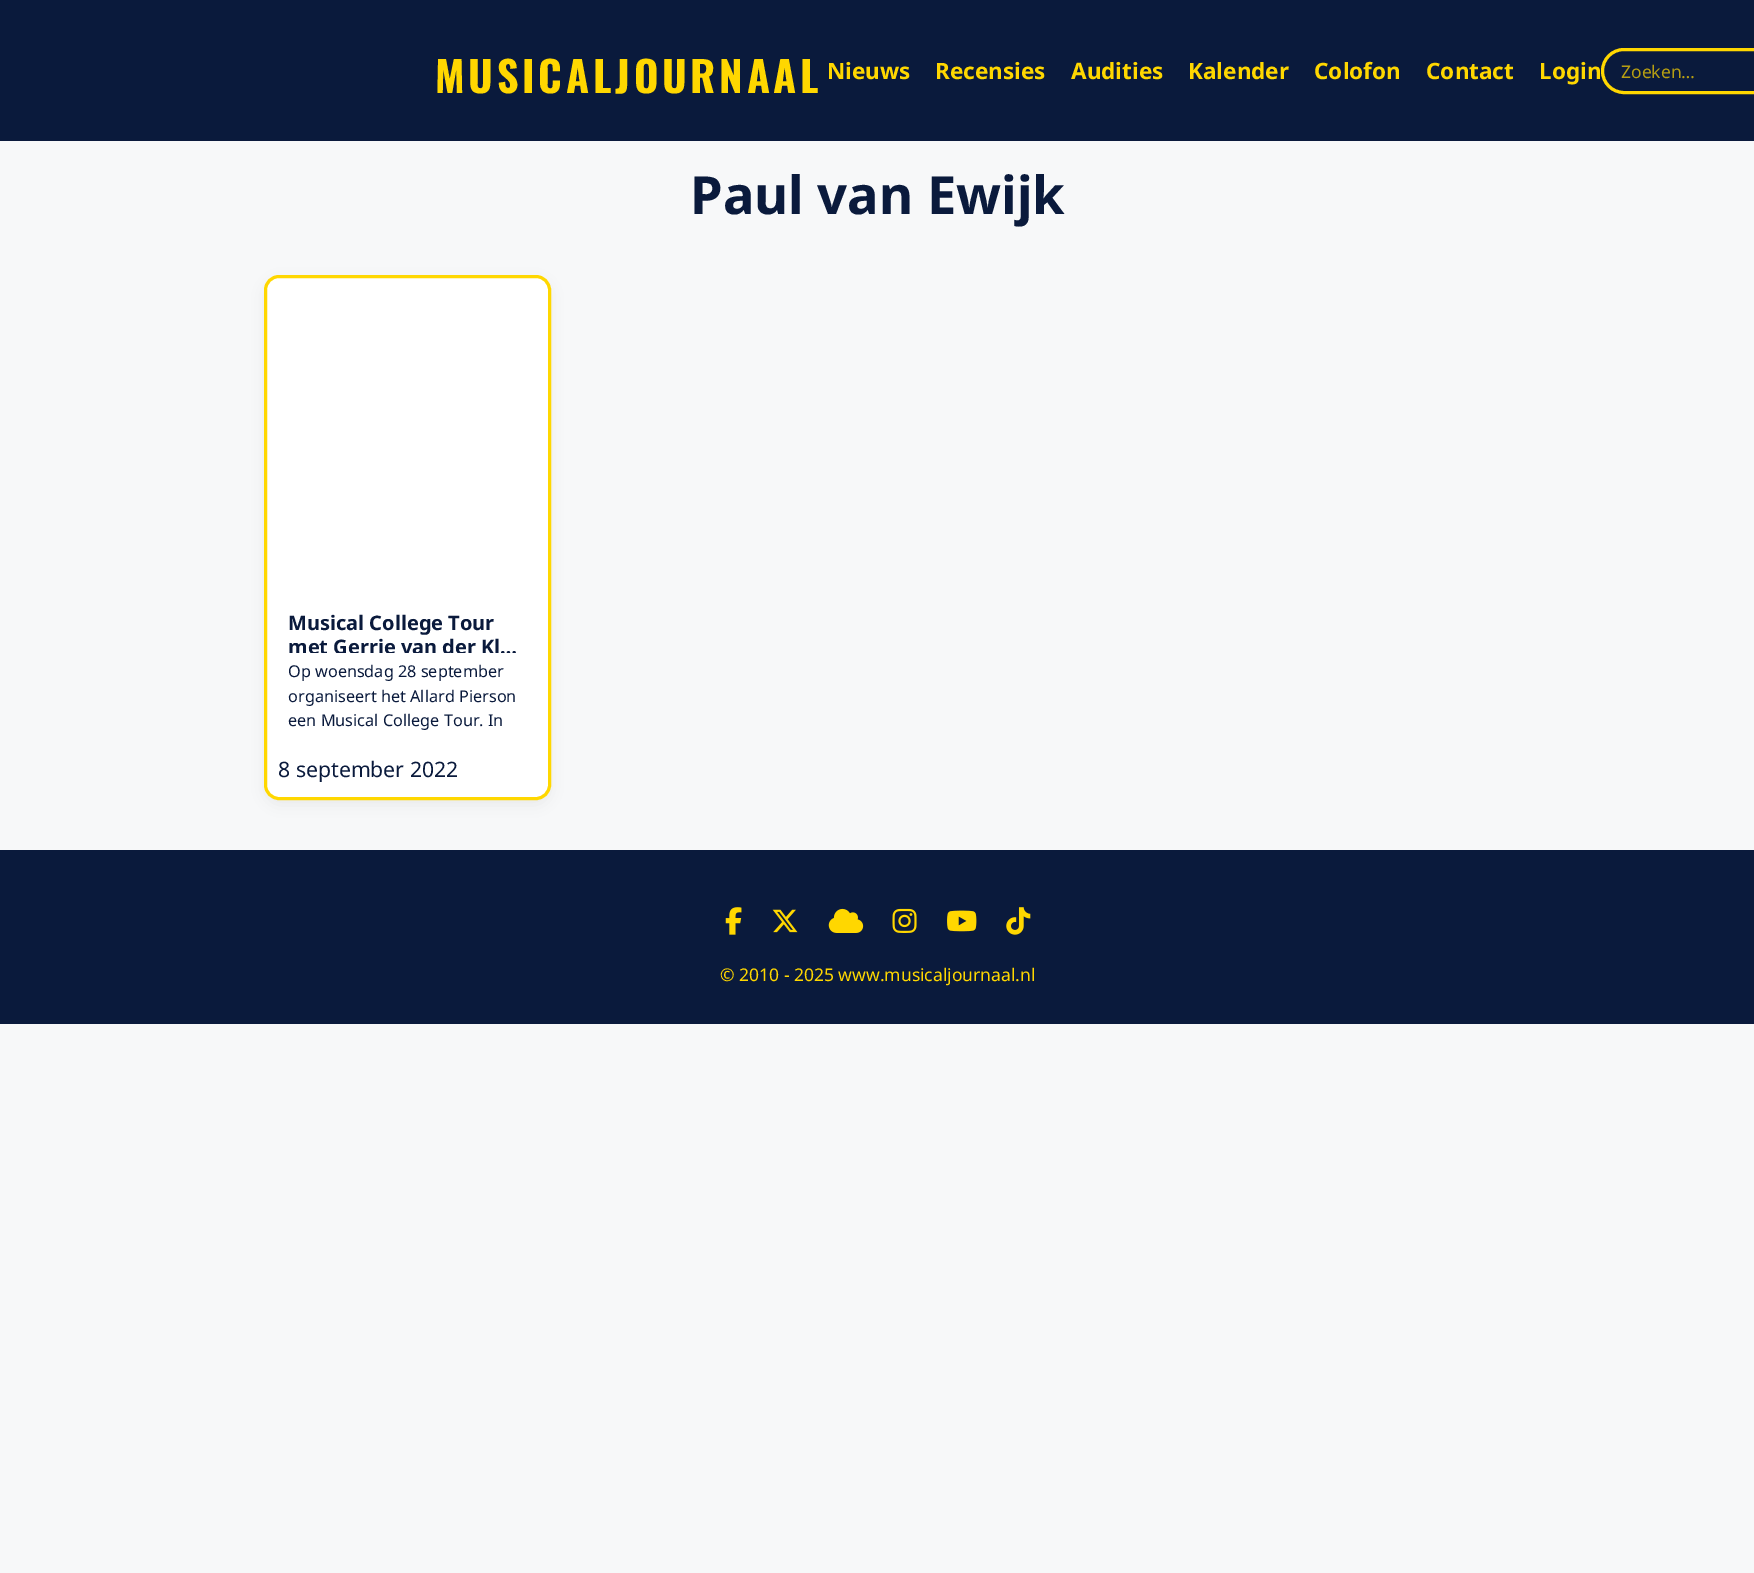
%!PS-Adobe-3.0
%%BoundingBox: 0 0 1754 1573
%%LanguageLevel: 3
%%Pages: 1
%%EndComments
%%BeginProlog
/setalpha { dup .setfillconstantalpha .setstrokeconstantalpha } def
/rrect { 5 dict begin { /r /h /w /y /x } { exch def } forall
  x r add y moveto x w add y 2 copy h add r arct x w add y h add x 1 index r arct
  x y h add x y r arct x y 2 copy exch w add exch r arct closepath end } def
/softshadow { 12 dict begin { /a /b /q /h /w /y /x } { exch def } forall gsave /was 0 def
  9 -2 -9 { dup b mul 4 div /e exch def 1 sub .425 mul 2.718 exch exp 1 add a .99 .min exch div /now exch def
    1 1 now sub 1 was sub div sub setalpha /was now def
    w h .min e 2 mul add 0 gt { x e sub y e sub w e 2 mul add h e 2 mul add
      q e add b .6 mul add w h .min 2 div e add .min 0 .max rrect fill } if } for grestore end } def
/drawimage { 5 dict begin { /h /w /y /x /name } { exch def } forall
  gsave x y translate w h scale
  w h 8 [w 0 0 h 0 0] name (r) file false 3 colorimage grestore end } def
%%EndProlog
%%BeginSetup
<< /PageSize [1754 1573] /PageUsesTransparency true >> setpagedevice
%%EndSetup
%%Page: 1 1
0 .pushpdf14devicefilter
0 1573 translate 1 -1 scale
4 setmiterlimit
0.969 0.973 0.976 setrgbcolor
0 0 1754 1573 rectfill
0.039 0.102 0.235 setrgbcolor
0 0 1754 141 rectfill
1 0.843 0 setrgbcolor
3 setlinewidth
1602.5 49.5 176 43 21.5 rrect stroke
0 setgray
264 280 287 525 15 7.5 0.06 softshadow
1 setgray
265.5 276.5 284 522 13.5 rrect gsave fill grestore
1 0.843 0 setrgbcolor
stroke
0.039 0.102 0.235 setrgbcolor
0 850 1754 174 rectfill
(images/1.raw) 725 907 17 28 drawimage
(images/2.raw) 772 909 26 24 drawimage
(images/3.raw) 828 908 36 25 drawimage
(images/4.raw) 892 908 25 25 drawimage
(images/5.raw) 947 910 30 22 drawimage
(images/6.raw) 1006 907 25 28 drawimage
/Oswald-Bold [42 0 0 -42 0 0] selectfont
1 0.843 0 setrgbcolor
435 93 moveto 3.75 0 (MUSICALJOURNAAL) ashow
/NotoSans-Bold [22.5 0 0 -22.5 0 0] selectfont
827 79 moveto (Nieuws) show
935 79 moveto (Recensies) show
1071 79 moveto (Audities) show
1188 79 moveto (Kalender) show
1314 79 moveto (Colofon) show
1426 79 moveto (Contact) show
1539 79 moveto (Login) show
/NotoSans-Regular [17.5 0 0 -17.5 0 0] selectfont
0.714 0.62 0.071 setrgbcolor
1621 78 moveto (Zoeken…) show
/NotoSans-Bold [52.5 0 0 -52.5 0 0] selectfont
0.039 0.102 0.235 setrgbcolor
690 214 moveto (Paul van Ewijk) show
/NotoSans-Bold [20 0 0 -20 0 0] selectfont
288 630 moveto (Musical College Tour) show
gsave
289 611 237 42 rectclip
288 654 moveto (met Gerrie van der Kl…) show
grestore
/NotoSans-Regular [16.25 0 0 -16.25 0 0] selectfont
288 677 moveto (Op woensdag 28 september) show
288 702 moveto (organiseert het Allard Pierson) show
288 726 moveto (een Musical College Tour. In) show
/NotoSans-Regular [21.25 0 0 -21.25 0 0] selectfont
278 777 moveto (8 september 2022) show
/NotoSans-Regular [17.5 0 0 -17.5 0 0] selectfont
1 0.843 0 setrgbcolor
720 981 moveto (© 2010 - 2025 www.musicaljournaal.nl) show
.poppdf14devicefilter showpage
%%EOF
